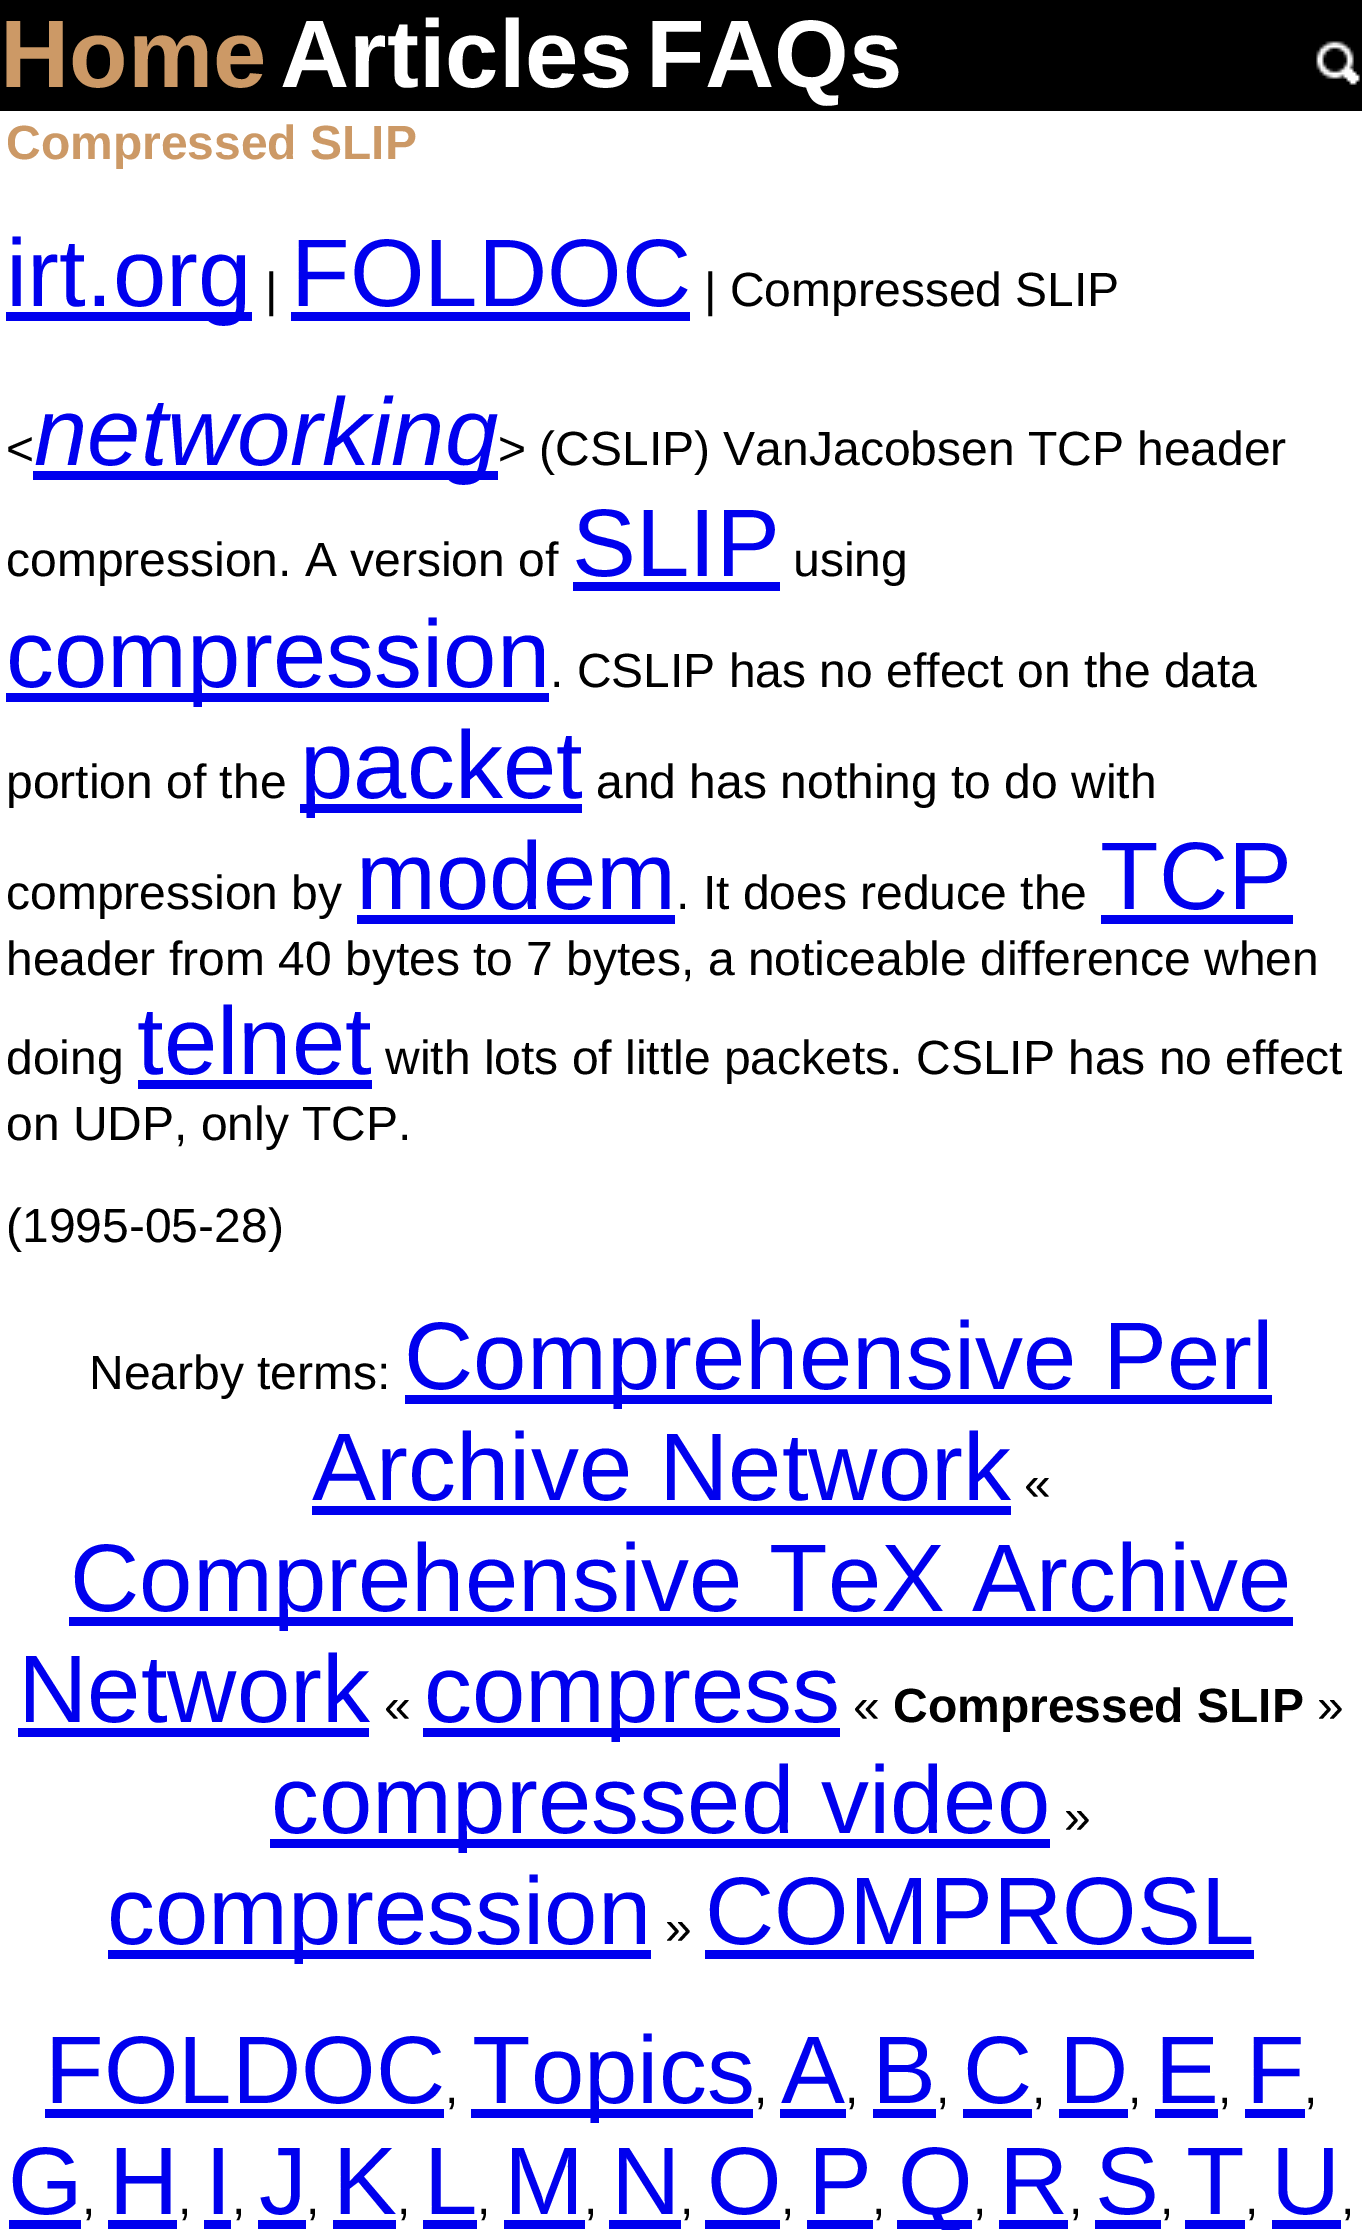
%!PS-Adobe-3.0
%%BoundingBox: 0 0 1362 2230
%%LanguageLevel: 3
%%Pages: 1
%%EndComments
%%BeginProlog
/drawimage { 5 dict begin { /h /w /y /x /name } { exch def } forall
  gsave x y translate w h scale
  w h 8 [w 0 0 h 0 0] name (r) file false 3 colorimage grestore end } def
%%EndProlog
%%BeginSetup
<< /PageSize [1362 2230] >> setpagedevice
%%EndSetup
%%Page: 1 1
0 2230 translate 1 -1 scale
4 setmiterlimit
1 setgray
0 0 1362 2230 rectfill
0 setgray
0 0 1362 111 rectfill
(images/1.raw) 1316 41 44 44 drawimage
0 0 0.933 setrgbcolor
6 312 246 9 rectfill
291 312 399 9 rectfill
33 471 465 9 rectfill
573 582 207 9 rectfill
6 693 543 9 rectfill
300 804 282 9 rectfill
357 915 318 9 rectfill
1101 915 192 9 rectfill
138 1080 234 9 rectfill
405 1395 867 9 rectfill
312 1506 699 9 rectfill
69 1617 1224 9 rectfill
18 1728 351 9 rectfill
423 1728 417 9 rectfill
270 1839 780 9 rectfill
108 1950 543 9 rectfill
705 1950 549 9 rectfill
45 2109 399 9 rectfill
471 2109 282 9 rectfill
780 2109 66 9 rectfill
873 2109 63 9 rectfill
963 2109 69 9 rectfill
1059 2109 69 9 rectfill
1155 2109 63 9 rectfill
1245 2109 60 9 rectfill
9 2220 72 9 rectfill
897 2220 75 9 rectfill
108 2220 69 9 rectfill
204 2220 27 9 rectfill
258 2220 48 9 rectfill
333 2220 63 9 rectfill
423 2220 54 9 rectfill
504 2220 81 9 rectfill
609 2220 72 9 rectfill
705 2220 75 9 rectfill
807 2220 66 9 rectfill
999 2220 69 9 rectfill
1095 2220 66 9 rectfill
1185 2220 60 9 rectfill
1272 2220 69 9 rectfill
/LiberationSans-Bold [96 0 0 -96 0 0] selectfont
0.8 0.6 0.4 setrgbcolor
0 87 moveto (Home) show
1 setgray
280 87 moveto (Articles) show
646 87 moveto (FAQs) show
/LiberationSans-Bold [48 0 0 -48 0 0] selectfont
0.8 0.6 0.4 setrgbcolor
6 159 moveto (Compressed SLIP) show
/LiberationSans-Regular [96 0 0 -96 0 0] selectfont
0 0 0.933 setrgbcolor
6 306 moveto (irt.org) show
/LiberationSans-Regular [48 0 0 -48 0 0] selectfont
0 setgray
265 306 moveto (|) show
/LiberationSans-Regular [96 0 0 -96 0 0] selectfont
0 0 0.933 setrgbcolor
291 306 moveto (FOLDOC) show
/LiberationSans-Regular [48 0 0 -48 0 0] selectfont
0 setgray
704 306 moveto (| Compressed SLIP) show
6 465 moveto (<) show
/LiberationSans-Italic [96 0 0 -96 0 0] selectfont
0 0 0.933 setrgbcolor
34 465 moveto (networking) show
/LiberationSans-Regular [48 0 0 -48 0 0] selectfont
0 setgray
498 465 moveto (> \(CSLIP\) VanJacobsen TCP header) show
6 576 moveto (compression. A version of) show
/LiberationSans-Regular [96 0 0 -96 0 0] selectfont
0 0 0.933 setrgbcolor
572 576 moveto (SLIP) show
/LiberationSans-Regular [48 0 0 -48 0 0] selectfont
0 setgray
793 576 moveto (using) show
/LiberationSans-Regular [96 0 0 -96 0 0] selectfont
0 0 0.933 setrgbcolor
6 687 moveto (compression) show
/LiberationSans-Regular [48 0 0 -48 0 0] selectfont
0 setgray
550 687 moveto (. CSLIP has no effect on the data) show
6 798 moveto (portion of the) show
/LiberationSans-Regular [96 0 0 -96 0 0] selectfont
0 0 0.933 setrgbcolor
300 798 moveto (packet) show
/LiberationSans-Regular [48 0 0 -48 0 0] selectfont
0 setgray
596 798 moveto (and has nothing to do with) show
6 909 moveto (compression by) show
/LiberationSans-Regular [96 0 0 -96 0 0] selectfont
0 0 0.933 setrgbcolor
356 909 moveto (modem) show
/LiberationSans-Regular [48 0 0 -48 0 0] selectfont
0 setgray
676 909 moveto (. It does reduce the) show
/LiberationSans-Regular [96 0 0 -96 0 0] selectfont
0 0 0.933 setrgbcolor
1100 909 moveto (TCP) show
/LiberationSans-Regular [48 0 0 -48 0 0] selectfont
0 setgray
6 975 moveto (header from 40 bytes to 7 bytes, a noticeable difference when) show
6 1074 moveto (doing) show
/LiberationSans-Regular [96 0 0 -96 0 0] selectfont
0 0 0.933 setrgbcolor
137 1074 moveto (telnet) show
/LiberationSans-Regular [48 0 0 -48 0 0] selectfont
0 setgray
385 1074 moveto (with lots of little packets. CSLIP has no effect) show
6 1140 moveto (on UDP, only TCP.) show
6 1242 moveto (\(1995-05-28\)) show
89 1389 moveto (Nearby terms:) show
/LiberationSans-Regular [96 0 0 -96 0 0] selectfont
0 0 0.933 setrgbcolor
404 1389 moveto (Comprehensive Perl) show
312 1500 moveto (Archive Network) show
/LiberationSans-Regular [48 0 0 -48 0 0] selectfont
0 setgray
1024 1500 moveto («) show
/LiberationSans-Regular [96 0 0 -96 0 0] selectfont
0 0 0.933 setrgbcolor
70 1611 moveto (Comprehensive TeX Archive) show
18 1722 moveto (Network) show
/LiberationSans-Regular [48 0 0 -48 0 0] selectfont
0 setgray
384 1722 moveto («) show
/LiberationSans-Regular [96 0 0 -96 0 0] selectfont
0 0 0.933 setrgbcolor
424 1722 moveto (compress) show
/LiberationSans-Regular [48 0 0 -48 0 0] selectfont
0 setgray
853 1722 moveto («) show
/LiberationSans-Bold [48 0 0 -48 0 0] selectfont
893 1722 moveto (Compressed SLIP) show
/LiberationSans-Regular [48 0 0 -48 0 0] selectfont
1317 1722 moveto (») show
/LiberationSans-Regular [96 0 0 -96 0 0] selectfont
0 0 0.933 setrgbcolor
271 1833 moveto (compressed video) show
/LiberationSans-Regular [48 0 0 -48 0 0] selectfont
0 setgray
1064 1833 moveto (») show
/LiberationSans-Regular [96 0 0 -96 0 0] selectfont
0 0 0.933 setrgbcolor
107 1944 moveto (compression) show
/LiberationSans-Regular [48 0 0 -48 0 0] selectfont
0 setgray
665 1944 moveto (») show
/LiberationSans-Regular [96 0 0 -96 0 0] selectfont
0 0 0.933 setrgbcolor
705 1944 moveto (COMPROSL) show
45 2103 moveto (FOLDOC) show
/LiberationSans-Regular [48 0 0 -48 0 0] selectfont
0 setgray
445 2103 moveto (,) show
/LiberationSans-Regular [96 0 0 -96 0 0] selectfont
0 0 0.933 setrgbcolor
472 2103 moveto (Topics A B C D E F) show
/LiberationSans-Regular [48 0 0 -48 0 0] selectfont
0 setgray
754 2103 moveto (,) show
845 2103 moveto (,) show
936 2103 moveto (,) show
1032 2103 moveto (,) show
1128 2103 moveto (,) show
1218 2103 moveto (,) show
1304 2103 moveto (,) show
/LiberationSans-Regular [96 0 0 -96 0 0] selectfont
0 0 0.933 setrgbcolor
8 2214 moveto (G H I J K L M N O P) show
898 2214 moveto (Q R S T U) show
/LiberationSans-Regular [48 0 0 -48 0 0] selectfont
0 setgray
82 2214 moveto (,) show
178 2214 moveto (,) show
232 2214 moveto (,) show
306 2214 moveto (,) show
397 2214 moveto (,) show
477 2214 moveto (,) show
584 2214 moveto (,) show
680 2214 moveto (,) show
781 2214 moveto (,) show
872 2214 moveto (,) show
973 2214 moveto (,) show
1069 2214 moveto (,) show
1160 2214 moveto (,) show
1245 2214 moveto (,) show
1341 2214 moveto (,) show
showpage
%%EOF
